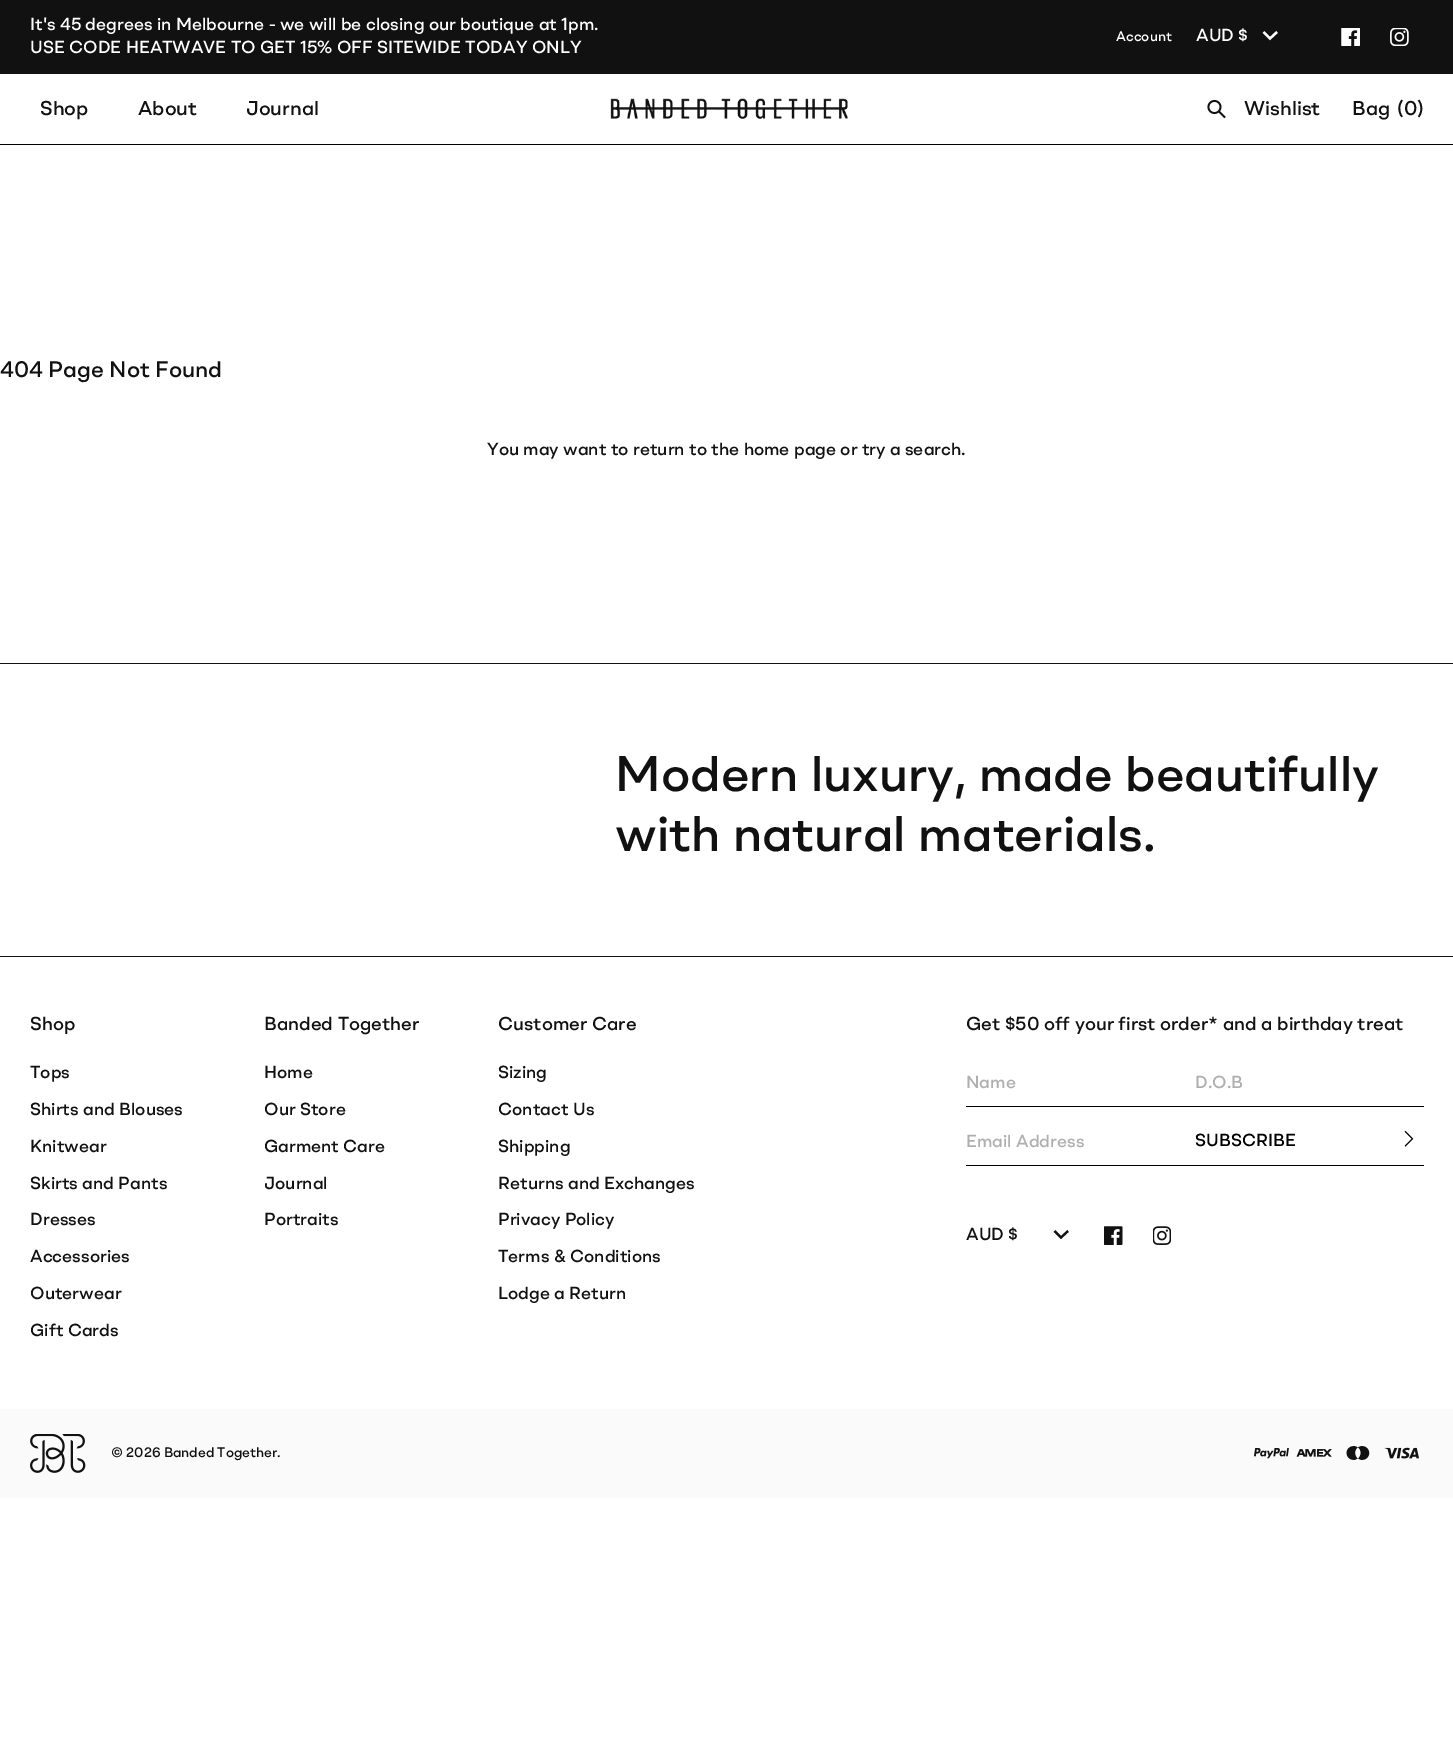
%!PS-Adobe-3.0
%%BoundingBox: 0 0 1453 1762
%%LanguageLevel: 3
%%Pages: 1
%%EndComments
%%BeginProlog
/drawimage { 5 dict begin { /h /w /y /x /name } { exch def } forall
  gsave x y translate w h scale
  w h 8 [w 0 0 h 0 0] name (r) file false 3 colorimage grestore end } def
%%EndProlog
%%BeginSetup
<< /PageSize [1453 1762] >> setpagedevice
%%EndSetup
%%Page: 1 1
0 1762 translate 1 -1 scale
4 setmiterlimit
1 setgray
0 0 1453 1762 rectfill
0.067 setgray
0 0 1453 74 rectfill
1 setgray
2.3 setlinewidth
newpath 1263.5 32 moveto 1270 38.5 lineto 1277 32 lineto stroke
(images/1.raw) 1341 28 19 18 drawimage
(images/2.raw) 1390 28 19 18 drawimage
0 setgray
0 144 1453 1 rectfill
(images/3.raw) 610 98 238 21 drawimage
(images/4.raw) 1207 99 19 20 drawimage
0.067 setgray
0 663 1453 1 rectfill
0 956 1453 1 rectfill
0 setgray
966 1106 458 1 rectfill
966 1165 458 1 rectfill
(images/5.raw) 1404 1130 10 17 drawimage
0.067 setgray
2.2 setlinewidth
newpath 1054.5 1231 moveto 1061 1237.5 lineto 1068 1231 lineto stroke
(images/6.raw) 1104 1226 19 19 drawimage
(images/7.raw) 1153 1226 18 19 drawimage
0.98 setgray
0 1409 1453 89 rectfill
(images/8.raw) 30 1434 56 39 drawimage
(images/9.raw) 1254 1448 35 11 drawimage
(images/10.raw) 1296 1449 36 8 drawimage
(images/11.raw) 1346 1446 24 14 drawimage
(images/12.raw) 1384 1447 35 12 drawimage
/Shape-Medium [17.5 0 0 -17.5 0 0] selectfont
1 setgray
30 30 moveto (It's 45 degrees in Melbourne - we will be closing our boutique at 1pm.) show
30 53 moveto (USE CODE HEATWAVE TO GET 15% OFF SITEWIDE TODAY ONLY) show
/Shape-Medium [13.75 0 0 -13.75 0 0] selectfont
1116 41 moveto (Account) show
/Shape-Medium [17.5 0 0 -17.5 0 0] selectfont
1196 41 moveto (AUD $) show
/Shape-Medium [20 0 0 -20 0 0] selectfont
0.067 setgray
40 115 moveto (Shop) show
138 115 moveto (About) show
246 115 moveto (Journal) show
1244 115 moveto (Wishlist) show
1352 115 moveto (Bag) show
1397 115 moveto (\(0\)) show
/Shape-Medium [22.5 0 0 -22.5 0 0] selectfont
0 377 moveto (404 Page Not Found) show
/Shape-Medium [17.5 0 0 -17.5 0 0] selectfont
487 455 moveto (You may want to return to the home page or try a search.) show
/Shape-Medium [50 0 0 -50 0 0] selectfont
615 791 moveto (Modern luxury, made beautifully) show
615 851 moveto (with natural materials.) show
/Shape-Medium [18.75 0 0 -18.75 0 0] selectfont
30 1030 moveto (Shop) show
/Shape-Medium [17.5 0 0 -17.5 0 0] selectfont
30 1078 moveto (Tops) show
30 1115 moveto (Shirts and Blouses) show
30 1152 moveto (Knitwear) show
30 1189 moveto (Skirts and Pants) show
30 1225 moveto (Dresses) show
30 1262 moveto (Accessories) show
30 1299 moveto (Outerwear) show
30 1336 moveto (Gift Cards) show
/Shape-Medium [18.75 0 0 -18.75 0 0] selectfont
264 1030 moveto (Banded Together) show
/Shape-Medium [17.5 0 0 -17.5 0 0] selectfont
264 1078 moveto (Home) show
264 1115 moveto (Our Store) show
264 1152 moveto (Garment Care) show
264 1189 moveto (Journal) show
264 1225 moveto (Portraits) show
/Shape-Medium [18.75 0 0 -18.75 0 0] selectfont
498 1030 moveto (Customer Care) show
/Shape-Medium [17.5 0 0 -17.5 0 0] selectfont
498 1078 moveto (Sizing) show
498 1115 moveto (Contact Us) show
498 1152 moveto (Shipping) show
498 1189 moveto (Returns and Exchanges) show
498 1225 moveto (Privacy Policy) show
498 1262 moveto (Terms & Conditions) show
498 1299 moveto (Lodge a Return) show
/Shape-Medium [18.75 0 0 -18.75 0 0] selectfont
966 1030 moveto (Get $50 off your first order* and a birthday treat) show
/Shape-Medium [17.5 0 0 -17.5 0 0] selectfont
0.686 setgray
966 1088 moveto (Name) show
1195 1088 moveto (D.O.B) show
966 1147 moveto (Email Address) show
0 setgray
1195 1146 moveto (SUBSCRIBE) show
0.067 setgray
966 1240 moveto (AUD $) show
/Shape-Medium [13.75 0 0 -13.75 0 0] selectfont
111 1457 moveto (© 2026 Banded Together.) show
showpage
%%EOF
